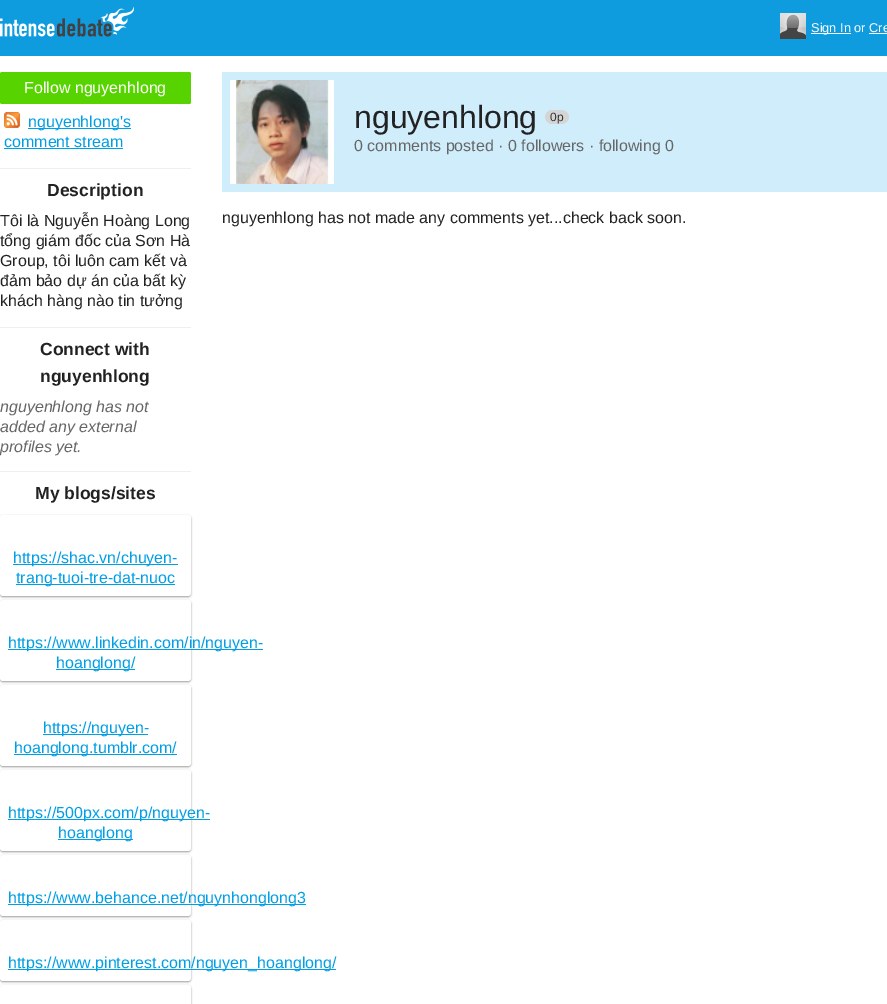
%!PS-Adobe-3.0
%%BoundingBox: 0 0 887 1004
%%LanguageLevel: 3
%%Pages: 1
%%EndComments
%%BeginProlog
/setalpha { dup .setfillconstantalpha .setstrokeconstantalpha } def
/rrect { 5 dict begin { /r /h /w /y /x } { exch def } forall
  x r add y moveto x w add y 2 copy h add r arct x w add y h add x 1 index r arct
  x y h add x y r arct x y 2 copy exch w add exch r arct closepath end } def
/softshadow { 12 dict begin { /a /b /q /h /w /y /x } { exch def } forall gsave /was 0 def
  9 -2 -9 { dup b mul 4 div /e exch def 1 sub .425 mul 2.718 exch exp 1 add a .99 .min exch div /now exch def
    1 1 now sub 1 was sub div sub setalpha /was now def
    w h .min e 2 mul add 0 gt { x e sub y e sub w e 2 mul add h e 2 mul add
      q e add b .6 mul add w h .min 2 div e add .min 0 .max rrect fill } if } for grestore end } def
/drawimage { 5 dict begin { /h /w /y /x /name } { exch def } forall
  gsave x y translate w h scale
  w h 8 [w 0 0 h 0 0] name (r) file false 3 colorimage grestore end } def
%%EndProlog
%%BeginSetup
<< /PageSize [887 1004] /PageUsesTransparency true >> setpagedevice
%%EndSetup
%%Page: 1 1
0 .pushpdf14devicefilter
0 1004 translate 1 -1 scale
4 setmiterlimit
1 setgray
0 0 887 1004 rectfill
0.059 0.612 0.875 setrgbcolor
0 0 887 56 rectfill
(images/1.raw) 0 6 134 31 drawimage
(images/2.raw) 780 13 26 26 drawimage
1 setgray
811 33 40 1 rectfill
869 33 18 1 rectfill
0.341 0.831 0 setrgbcolor
0 72 191 32 2 rrect fill
(images/3.raw) 4 112 16 16 drawimage
0 0.62 0.894 setrgbcolor
28 128 103 1 rectfill
4 148 119 1 rectfill
0.937 setgray
0 168 191 1 rectfill
0 327 191 1 rectfill
0 471 191 1 rectfill
0.6 setgray
0 516 191 81 3 1 1 softshadow
1 setgray
0 515 191 81 3 rrect fill
0 0.62 0.894 setrgbcolor
13 564 165 1 rectfill
16 584 159 1 rectfill
0.6 setgray
0 601 191 81 3 1 1 softshadow
1 setgray
0 600 191 81 3 rrect fill
0 0.62 0.894 setrgbcolor
8 649 255 1 rectfill
56 669 79 1 rectfill
0.6 setgray
0 686 191 81 3 1 1 softshadow
1 setgray
0 685 191 81 3 rrect fill
0 0.62 0.894 setrgbcolor
43 734 105 1 rectfill
14 754 163 1 rectfill
0.6 setgray
0 771 191 81 3 1 1 softshadow
1 setgray
0 770 191 81 3 rrect fill
0 0.62 0.894 setrgbcolor
8 819 202 1 rectfill
58 839 75 1 rectfill
0.6 setgray
0 856 191 61 3 1 1 softshadow
1 setgray
0 855 191 61 3 rrect fill
0 0.62 0.894 setrgbcolor
8 904 298 1 rectfill
0.6 setgray
0 921 191 61 3 1 1 softshadow
1 setgray
0 920 191 61 3 rrect fill
0 0.62 0.894 setrgbcolor
8 969 328 1 rectfill
0.6 setgray
0 986 191 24 3 1 1 softshadow
1 setgray
0 985 191 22 3 rrect fill
0.812 0.929 0.984 setrgbcolor
222 72 665 120 rectfill
(images/4.raw) 230 80 104 104 drawimage
(images/5.raw) 545 110 5 14 drawimage
(images/6.raw) 550 110 19 14 drawimage
/LiberationSans-Regular [12.75 0 0 -12.75 0 0] selectfont
1 setgray
811 32 moveto (Sign In or Cre) show
/LiberationSans-Regular [16 0 0 -16 0 0] selectfont
24 93 moveto (Follow nguyenhlong) show
0 0.62 0.894 setrgbcolor
28 127 moveto (nguyenhlong's) show
4 147 moveto (comment stream) show
/LiberationSans-Bold [17.5 0 0 -17.5 0 0] selectfont
0.133 setgray
47 196 moveto (Description) show
/LiberationSans-Regular [16 0 0 -16 0 0] selectfont
0 226 moveto (Tôi là Nguyễn Hoàng Long) show
0 246 moveto (tổng giám đốc của Sơn Hà) show
0 266 moveto (Group, tôi luôn cam kết và) show
0 286 moveto (đảm bảo dự án của bất kỳ) show
0 306 moveto (khách hàng nào tin tưởng) show
/LiberationSans-Bold [17.5 0 0 -17.5 0 0] selectfont
40 355 moveto (Connect with) show
40 382 moveto (nguyenhlong) show
/LiberationSans-Italic [16 0 0 -16 0 0] selectfont
0.4 setgray
0 412 moveto (nguyenhlong has not) show
0 432 moveto (added any external) show
0 452 moveto (profiles yet.) show
/LiberationSans-Bold [17.5 0 0 -17.5 0 0] selectfont
0.133 setgray
35 499 moveto (My blogs/sites) show
/LiberationSans-Regular [16 0 0 -16 0 0] selectfont
0 0.62 0.894 setrgbcolor
13 563 moveto (https://shac.vn/chuyen-) show
16 583 moveto (trang-tuoi-tre-dat-nuoc) show
8 648 moveto (https://www.linkedin.com/in/nguyen-) show
56 668 moveto (hoanglong/) show
43 733 moveto (https://nguyen-) show
14 753 moveto (hoanglong.tumblr.com/) show
8 818 moveto (https://500px.com/p/nguyen-) show
58 838 moveto (hoanglong) show
8 903 moveto (https://www.behance.net/nguynhonglong3) show
8 968 moveto (https://www.pinterest.com/nguyen_hoanglong/) show
/LiberationSans-Regular [32 0 0 -32 0 0] selectfont
0.133 setgray
354 128 moveto (nguyenhlong) show
/LiberationSans-Regular [12 0 0 -12 0 0] selectfont
0.2 setgray
550 121 moveto (0p) show
/LiberationSans-Regular [16 0 0 -16 0 0] selectfont
0.4 setgray
354 151 moveto (0 comments posted · 0 followers · following 0) show
0.133 setgray
222 223 moveto (nguyenhlong has not made any comments yet...check back soon.) show
.poppdf14devicefilter showpage
%%EOF
